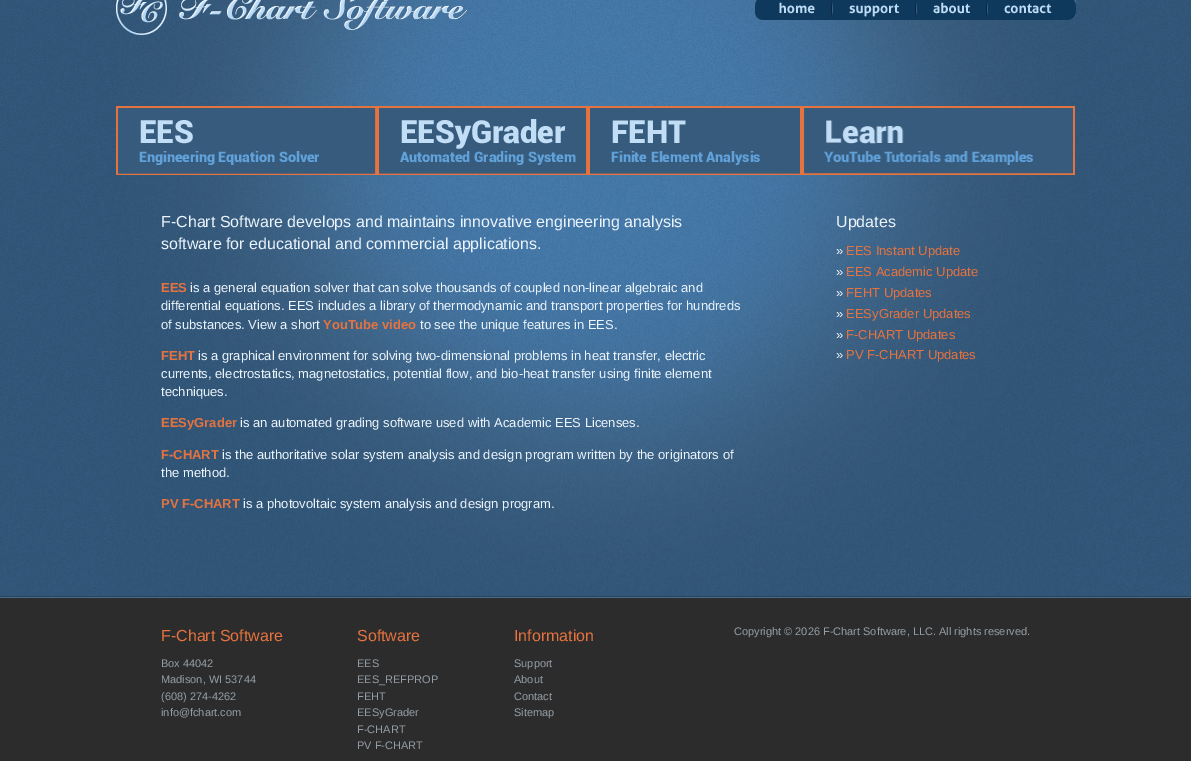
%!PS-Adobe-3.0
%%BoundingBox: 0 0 1191 761
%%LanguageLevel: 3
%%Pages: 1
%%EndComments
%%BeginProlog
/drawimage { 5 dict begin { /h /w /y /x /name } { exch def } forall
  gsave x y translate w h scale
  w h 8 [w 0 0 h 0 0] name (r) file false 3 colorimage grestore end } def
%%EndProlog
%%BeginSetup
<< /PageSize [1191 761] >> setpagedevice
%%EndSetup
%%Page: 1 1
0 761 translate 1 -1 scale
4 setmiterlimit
1 setgray
0 0 1191 761 rectfill
(images/1.raw) 0 0 1191 596 drawimage
(images/2.raw) 116 0 960 596 drawimage
0.157 0.267 0.365 setrgbcolor
0 596 1191 1 rectfill
(images/3.raw) 116 0 351 35 drawimage
(images/4.raw) 755 0 321 20 drawimage
(images/5.raw) 116 106 261 69 drawimage
(images/6.raw) 377 106 211 69 drawimage
(images/7.raw) 588 106 214 69 drawimage
(images/8.raw) 802 106 273 69 drawimage
0.173 setgray
0 598 1191 163 rectfill
0.29 0.424 0.545 setrgbcolor
0 597 1191 1 rectfill
/LiberationSans-Regular [16 0 0 -16 0 0] selectfont
0.922 0.957 0.988 setrgbcolor
161 227 moveto (F-Chart Software develops and maintains innovative engineering analysis) show
161 249 moveto (software for educational and commercial applications.) show
/LiberationSans-Bold [13 0 0 -13 0 0] selectfont
0.898 0.451 0.247 setrgbcolor
161 292 moveto (EES) show
/LiberationSans-Regular [13 0 0 -13 0 0] selectfont
0.922 0.957 0.988 setrgbcolor
190 292 moveto (is a general equation solver that can solve thousands of coupled non-linear algebraic and) show
161 310 moveto (differential equations. EES includes a library of thermodynamic and transport properties for hundreds) show
161 329 moveto (of substances. View a short) show
/LiberationSans-Bold [13 0 0 -13 0 0] selectfont
0.898 0.451 0.247 setrgbcolor
323 329 moveto (YouTube video) show
/LiberationSans-Regular [13 0 0 -13 0 0] selectfont
0.922 0.957 0.988 setrgbcolor
420 329 moveto (to see the unique features in EES.) show
/LiberationSans-Bold [13 0 0 -13 0 0] selectfont
0.898 0.451 0.247 setrgbcolor
161 360 moveto (FEHT) show
/LiberationSans-Regular [13 0 0 -13 0 0] selectfont
0.922 0.957 0.988 setrgbcolor
198 360 moveto (is a graphical environment for solving two-dimensional problems in heat transfer, electric) show
161 378 moveto (currents, electrostatics, magnetostatics, potential flow, and bio-heat transfer using finite element) show
161 396 moveto (techniques.) show
/LiberationSans-Bold [13 0 0 -13 0 0] selectfont
0.898 0.451 0.247 setrgbcolor
161 427 moveto (EESyGrader) show
/LiberationSans-Regular [13 0 0 -13 0 0] selectfont
0.922 0.957 0.988 setrgbcolor
240 427 moveto (is an automated grading software used with Academic EES Licenses.) show
/LiberationSans-Bold [13 0 0 -13 0 0] selectfont
0.898 0.451 0.247 setrgbcolor
161 459 moveto (F-CHART) show
/LiberationSans-Regular [13 0 0 -13 0 0] selectfont
0.922 0.957 0.988 setrgbcolor
222 459 moveto (is the authoritative solar system analysis and design program written by the originators of) show
161 477 moveto (the method.) show
/LiberationSans-Bold [13 0 0 -13 0 0] selectfont
0.898 0.451 0.247 setrgbcolor
161 508 moveto (PV F-CHART) show
/LiberationSans-Regular [13 0 0 -13 0 0] selectfont
0.922 0.957 0.988 setrgbcolor
243 508 moveto (is a photovoltaic system analysis and design program.) show
/LiberationSans-Regular [16 0 0 -16 0 0] selectfont
836 227 moveto (Updates) show
/LiberationSans-Regular [13 0 0 -13 0 0] selectfont
836 255 moveto (») show
0.898 0.451 0.247 setrgbcolor
846 255 moveto (EES Instant Update) show
0.922 0.957 0.988 setrgbcolor
836 276 moveto (») show
0.898 0.451 0.247 setrgbcolor
846 276 moveto (EES Academic Update) show
0.922 0.957 0.988 setrgbcolor
836 297 moveto (») show
0.898 0.451 0.247 setrgbcolor
846 297 moveto (FEHT Updates) show
0.922 0.957 0.988 setrgbcolor
836 318 moveto (») show
0.898 0.451 0.247 setrgbcolor
846 318 moveto (EESyGrader Updates) show
0.922 0.957 0.988 setrgbcolor
836 339 moveto (») show
0.898 0.451 0.247 setrgbcolor
846 339 moveto (F-CHART Updates) show
0.922 0.957 0.988 setrgbcolor
836 359 moveto (») show
0.898 0.451 0.247 setrgbcolor
846 359 moveto (PV F-CHART Updates) show
/LiberationSans-Regular [16 0 0 -16 0 0] selectfont
161 641 moveto (F-Chart Software) show
/LiberationSans-Regular [11 0 0 -11 0 0] selectfont
0.584 0.62 0.651 setrgbcolor
161 667 moveto (Box 44042) show
161 683 moveto (Madison, WI 53744) show
161 700 moveto (\(608\) 274-4262) show
161 716 moveto (info@fchart.com) show
/LiberationSans-Regular [16 0 0 -16 0 0] selectfont
0.898 0.451 0.247 setrgbcolor
357 641 moveto (Software) show
/LiberationSans-Regular [11 0 0 -11 0 0] selectfont
0.584 0.62 0.651 setrgbcolor
357 667 moveto (EES) show
357 683 moveto (EES_REFPROP) show
357 700 moveto (FEHT) show
357 716 moveto (EESyGrader) show
357 733 moveto (F-CHART) show
357 749 moveto (PV F-CHART) show
/LiberationSans-Regular [16 0 0 -16 0 0] selectfont
0.898 0.451 0.247 setrgbcolor
514 641 moveto (Information) show
/LiberationSans-Regular [11 0 0 -11 0 0] selectfont
0.584 0.62 0.651 setrgbcolor
514 667 moveto (Support) show
514 683 moveto (About) show
514 700 moveto (Contact) show
514 716 moveto (Sitemap) show
734 635 moveto (Copyright © 2026 F-Chart Software, LLC. All rights reserved.) show
showpage
%%EOF
